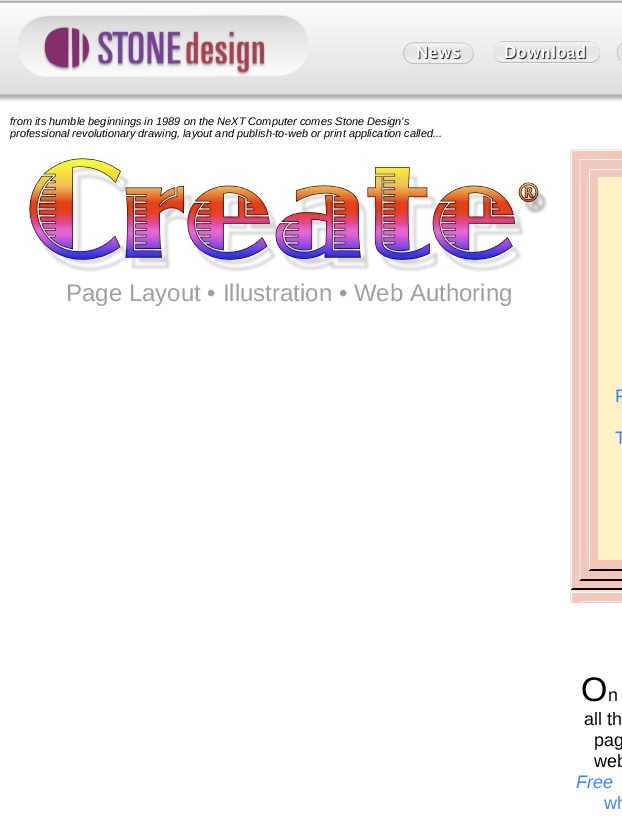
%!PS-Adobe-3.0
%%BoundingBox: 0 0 622 839
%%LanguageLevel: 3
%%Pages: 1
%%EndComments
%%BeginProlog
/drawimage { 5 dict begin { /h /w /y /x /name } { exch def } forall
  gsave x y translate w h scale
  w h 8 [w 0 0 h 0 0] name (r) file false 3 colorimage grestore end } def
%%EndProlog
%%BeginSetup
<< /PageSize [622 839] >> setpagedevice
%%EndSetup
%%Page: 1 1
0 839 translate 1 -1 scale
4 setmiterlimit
1 setgray
0 0 622 839 rectfill
(images/1.raw) 0 0 13 38 drawimage
(images/2.raw) 13 0 28 102 drawimage
(images/3.raw) 41 0 52 102 drawimage
(images/4.raw) 93 0 219 102 drawimage
(images/5.raw) 312 0 86 102 drawimage
(images/6.raw) 398 0 84 38 drawimage
(images/7.raw) 482 0 127 38 drawimage
(images/1.raw) 609 0 13 38 drawimage
(images/8.raw) 0 38 13 28 drawimage
(images/9.raw) 398 38 84 28 drawimage
(images/10.raw) 482 38 127 28 drawimage
(images/11.raw) 609 38 13 28 drawimage
(images/12.raw) 0 66 13 36 drawimage
(images/13.raw) 398 66 84 36 drawimage
(images/14.raw) 482 66 127 36 drawimage
(images/15.raw) 609 66 13 36 drawimage
(images/16.raw) 25 156 523 116 drawimage
(images/17.raw) 570 149 52 454 drawimage
1 0.945 0.784 setrgbcolor
598 177 24 383 rectfill
/LiberationSans-Italic [11 0 0 -11 0 0] selectfont
0 setgray
10 125 moveto (from its humble beginnings in 1989 on the NeXT Computer comes Stone Design’s) show
10 137 moveto (professional revolutionary drawing, layout and publish-to-web or print application called...) show
/LiberationSans-Regular [24 0 0 -24 0 0] selectfont
0.627 setgray
66 301 moveto (Page Layout • Illustration • Web Authoring) show
/LiberationSans-Regular [18 0 0 -18 0 0] selectfont
0.255 0.514 1 setrgbcolor
615 402 moveto (P) show
615 444 moveto (T) show
/LiberationSans-Regular [34 0 0 -34 0 0] selectfont
0 setgray
581 701 moveto (O) show
/LiberationSans-Regular [18 0 0 -18 0 0] selectfont
608 701 moveto (n) show
584 725 moveto (all th) show
594 746 moveto (pag) show
594 767 moveto (web) show
/LiberationSans-Italic [18 0 0 -18 0 0] selectfont
0.255 0.514 1 setrgbcolor
576 788 moveto (Free) show
/LiberationSans-Regular [18 0 0 -18 0 0] selectfont
604 809 moveto (wh) show
showpage
%%EOF
